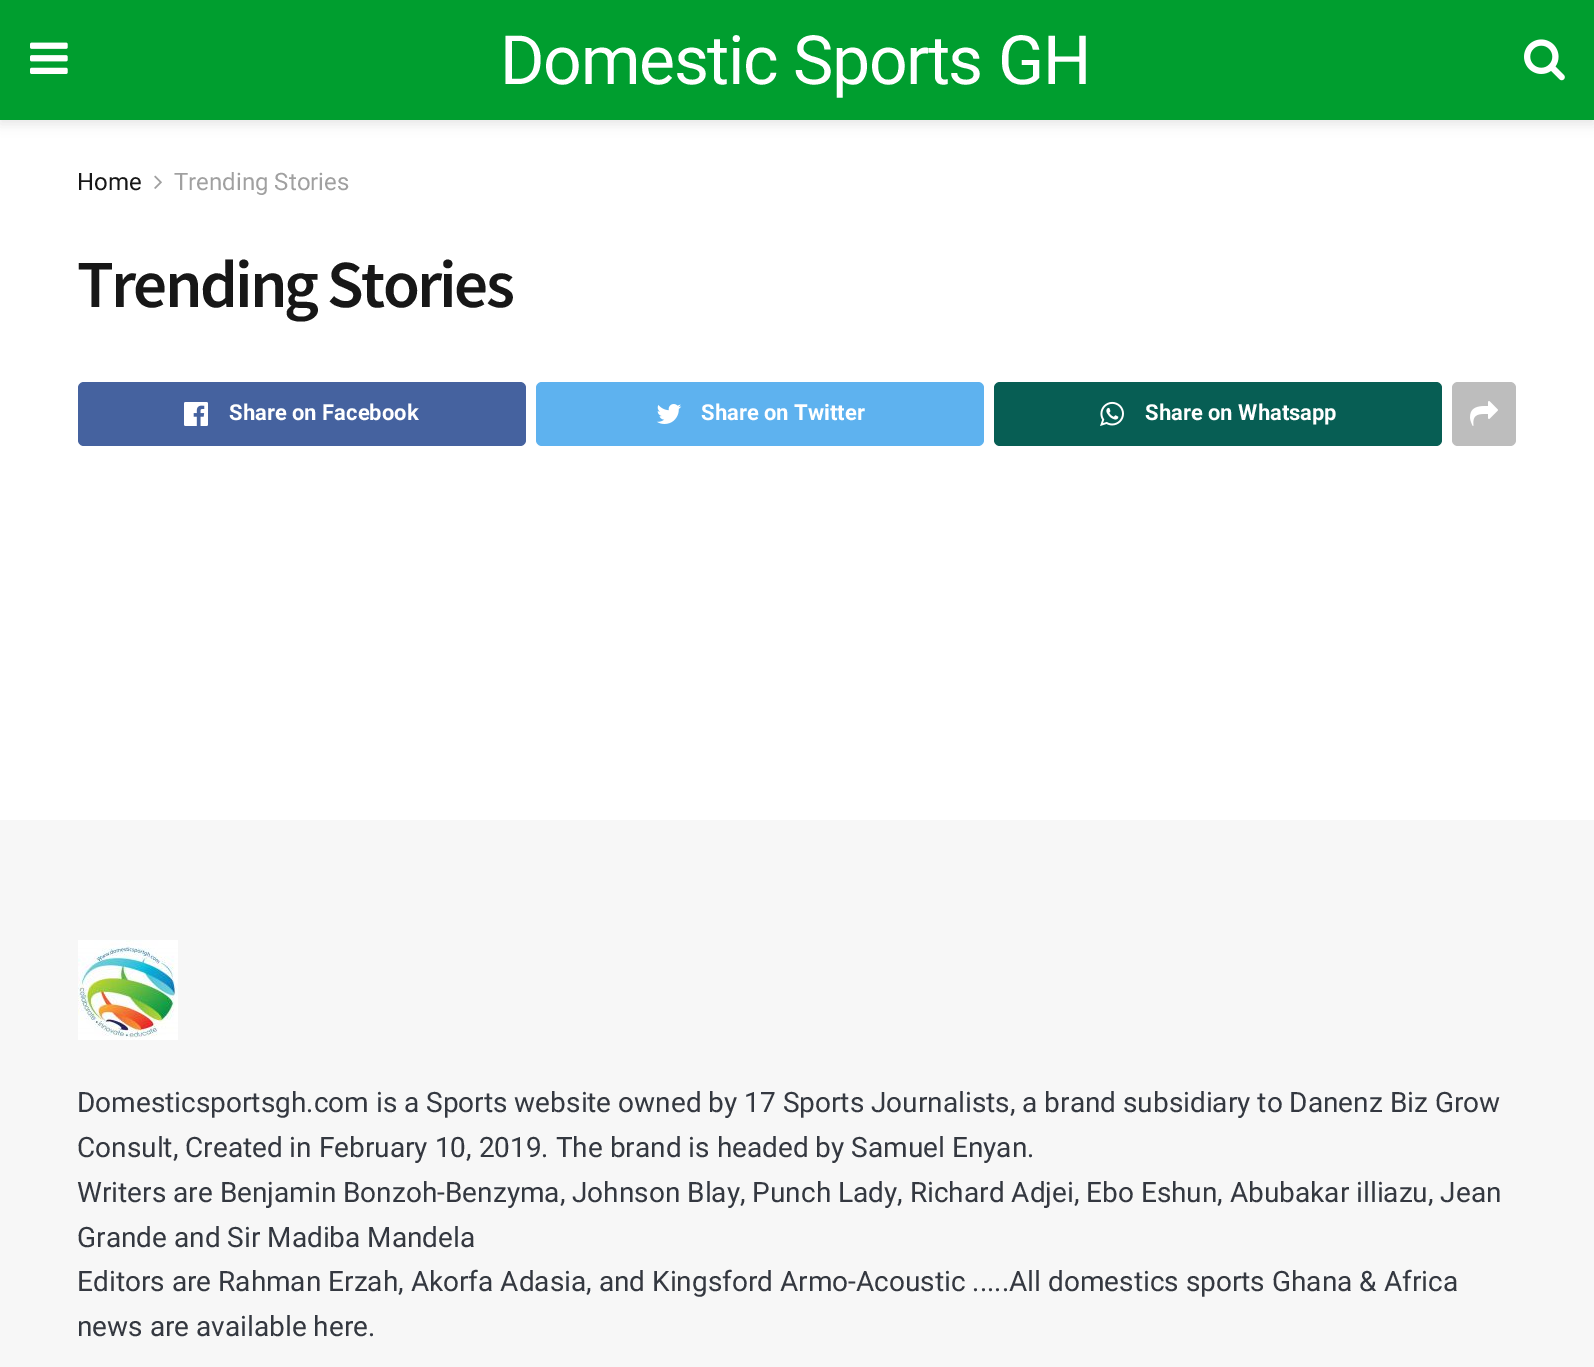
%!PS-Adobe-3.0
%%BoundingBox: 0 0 1594 1367
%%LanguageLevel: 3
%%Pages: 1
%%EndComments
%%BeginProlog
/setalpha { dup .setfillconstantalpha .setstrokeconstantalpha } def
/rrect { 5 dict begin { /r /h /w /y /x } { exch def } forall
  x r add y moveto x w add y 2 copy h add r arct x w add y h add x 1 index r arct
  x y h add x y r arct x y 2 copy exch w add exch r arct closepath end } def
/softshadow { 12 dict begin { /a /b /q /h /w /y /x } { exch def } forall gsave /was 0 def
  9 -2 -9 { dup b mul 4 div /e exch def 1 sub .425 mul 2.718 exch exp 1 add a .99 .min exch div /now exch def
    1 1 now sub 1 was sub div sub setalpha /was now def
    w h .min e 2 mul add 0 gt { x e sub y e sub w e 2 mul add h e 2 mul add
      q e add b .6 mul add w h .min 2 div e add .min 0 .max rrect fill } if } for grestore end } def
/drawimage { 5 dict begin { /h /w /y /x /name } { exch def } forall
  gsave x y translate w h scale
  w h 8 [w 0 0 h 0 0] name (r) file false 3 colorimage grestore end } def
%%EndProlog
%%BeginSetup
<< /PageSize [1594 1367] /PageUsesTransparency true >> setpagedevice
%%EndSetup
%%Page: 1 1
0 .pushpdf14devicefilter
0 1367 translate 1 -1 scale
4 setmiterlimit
1 setgray
0 0 1594 1367 rectfill
0 setgray
0 4 1594 120 0 6 0.1 softshadow
0 0.62 0.184 setrgbcolor
0 0 1594 120 rectfill
(images/1.raw) 30 42 38 32 drawimage
(images/2.raw) 1524 39 41 42 drawimage
(images/3.raw) 154 175 8 14 drawimage
0.271 0.384 0.624 setrgbcolor
78 382 448 64 6 rrect fill
(images/4.raw) 184 402 24 24 drawimage
0.369 0.698 0.937 setrgbcolor
536 382 448 64 6 rrect fill
(images/5.raw) 656 404 26 20 drawimage
0.027 0.369 0.329 setrgbcolor
994 382 448 64 6 rrect fill
(images/6.raw) 1100 401 24 25 drawimage
0.741 setgray
1452 382 64 64 6 rrect fill
(images/7.raw) 1470 401 28 25 drawimage
0.969 setgray
0 820 1594 547 rectfill
(images/8.raw) 78 940 100 100 drawimage
/Roboto-Regular [68 0 0 -68 0 0] selectfont
1 setgray
500 84 moveto -1.4 0 (Domestic Sports GH) ashow
/Roboto-Regular [24 0 0 -24 0 0] selectfont
0.09 setgray
77 190 moveto (Home) show
0.627 setgray
174 190 moveto (Trending Stories) show
/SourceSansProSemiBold-SemiBold [67.25 0 0 -67.25 0 0] selectfont
0.09 setgray
77 307 moveto -2.75 0 (Trending Stories) ashow
/Roboto-Bold [22 0 0 -22 0 0] selectfont
1 setgray
229 420 moveto (Share on Facebook) show
701 420 moveto (Share on Twitter) show
1145 420 moveto (Share on Whatsapp) show
/Roboto-Regular [28 0 0 -28 0 0] selectfont
0.204 0.22 0.251 setrgbcolor
77 1112 moveto (Domesticsportsgh.com is a Sports website owned by 17 Sports Journalists, a brand subsidiary to Danenz Biz Grow) show
77 1157 moveto (Consult, Created in February 10, 2019. The brand is headed by Samuel Enyan.) show
77 1202 moveto (Writers are Benjamin Bonzoh-Benzyma, Johnson Blay, Punch Lady, Richard Adjei, Ebo Eshun, Abubakar illiazu, Jean) show
77 1247 moveto (Grande and Sir Madiba Mandela) show
77 1291 moveto (Editors are Rahman Erzah, Akorfa Adasia, and Kingsford Armo-Acoustic .....All domestics sports Ghana & Africa) show
77 1336 moveto (news are available here.) show
.poppdf14devicefilter showpage
%%EOF
